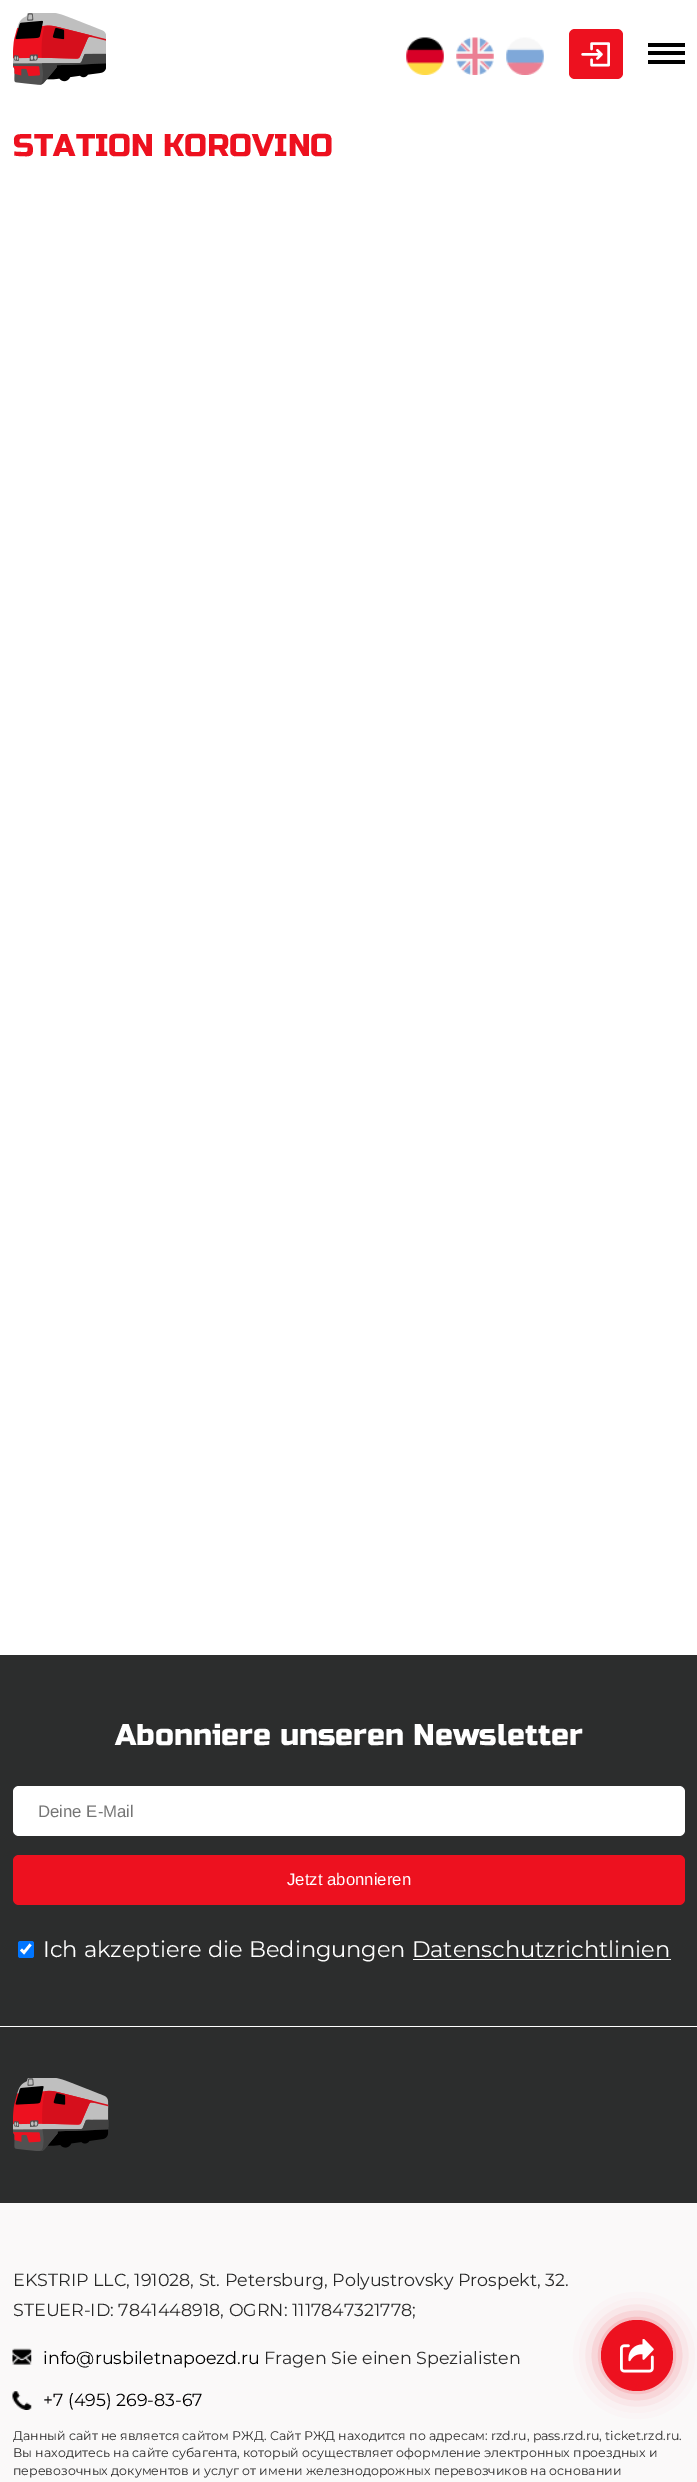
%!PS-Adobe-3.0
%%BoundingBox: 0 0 697 2482
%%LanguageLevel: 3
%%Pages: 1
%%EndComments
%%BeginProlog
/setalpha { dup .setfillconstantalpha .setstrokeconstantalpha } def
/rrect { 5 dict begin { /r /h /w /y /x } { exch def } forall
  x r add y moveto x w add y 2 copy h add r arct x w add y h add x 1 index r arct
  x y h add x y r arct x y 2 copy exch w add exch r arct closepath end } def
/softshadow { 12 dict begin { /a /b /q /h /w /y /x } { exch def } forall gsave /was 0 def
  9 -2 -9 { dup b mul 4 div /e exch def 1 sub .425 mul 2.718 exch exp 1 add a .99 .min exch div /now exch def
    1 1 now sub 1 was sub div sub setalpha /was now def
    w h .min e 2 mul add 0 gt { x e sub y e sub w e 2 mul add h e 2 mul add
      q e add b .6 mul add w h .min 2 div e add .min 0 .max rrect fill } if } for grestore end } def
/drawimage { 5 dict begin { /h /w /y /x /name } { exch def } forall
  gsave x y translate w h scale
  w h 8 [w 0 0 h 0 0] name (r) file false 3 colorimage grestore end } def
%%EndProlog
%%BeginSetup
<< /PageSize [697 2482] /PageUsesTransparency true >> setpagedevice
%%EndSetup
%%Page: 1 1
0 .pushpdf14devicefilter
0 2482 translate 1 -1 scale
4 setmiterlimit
1 setgray
0 0 697 2482 rectfill
(images/1.raw) 13 13 93 72 drawimage
(images/2.raw) 406 37 38 38 drawimage
(images/3.raw) 456 37 38 38 drawimage
(images/4.raw) 506 37 38 38 drawimage
0.929 0.067 0.122 setrgbcolor
569 29 54 50 6 rrect fill
(images/5.raw) 581 42 29 25 drawimage
0 setgray
648 43 37 4 rectfill
648 51 37 4 rectfill
648 60 37 4 rectfill
0.173 0.176 0.176 setrgbcolor
0 1655 697 548 rectfill
1 setgray
0 2026 697 1 rectfill
13 1786 672 50 6 rrect fill
0.929 0.067 0.122 setrgbcolor
13 1855 672 50 6 rrect fill
0 0.459 1 setrgbcolor
18 1941 16 17 2.5 rrect fill
1 setgray
2.6 setlinewidth
newpath 21 1949.5 moveto 24 1952.5 lineto 30.5 1944.5 lineto stroke
413 1959 258 1 rectfill
0.98 0.976 0.976 setrgbcolor
0 2203 697 279 rectfill
0.929 0.067 0.122 setrgbcolor
601 2320 72 71 35.5 12.5 0.5 softshadow
601 2320 72 71 35.5 rrect fill
(images/6.raw) 620 2339 34 34 drawimage
(images/7.raw) 13 2078 96 73 drawimage
(images/8.raw) 12 2348 20 17 drawimage
(images/9.raw) 12 2391 20 19 drawimage
/RussoOne-Regular [31.25 0 0 -31.25 0 0] selectfont
13 156 moveto (STATION KOROVINO) show
/RussoOne-Regular [30 0 0 -30 0 0] selectfont
1 setgray
115 1745 moveto (Abonniere unseren Newsletter) show
/LiberationSans-Regular [16.75 0 0 -16.75 0 0] selectfont
0.459 setgray
38 1817 moveto (Deine E-Mail) show
1 setgray
287 1885 moveto (Jetzt abonnieren) show
/Montserrat-Regular [22.5 0 0 -22.5 0 0] selectfont
43 1957 moveto (Ich akzeptiere die Bedingungen Datenschutzrichtlinien) show
/Montserrat-Regular [17.5 0 0 -17.5 0 0] selectfont
0.161 setgray
13 2286 moveto (EKSTRIP LLC, 191028, St. Petersburg, Polyustrovsky Prospekt, 32.) show
13 2316 moveto (STEUER-ID: 7841448918, OGRN: 1117847321778;) show
0 setgray
43 2364 moveto (info@rusbiletnapoezd.ru) show
0.161 setgray
264 2364 moveto (Fragen Sie einen Spezialisten) show
0 setgray
43 2406 moveto (+7 \(495\) 269-83-67) show
/Montserrat-Regular [12.5 0 0 -12.5 0 0] selectfont
0.161 setgray
13 2440 moveto (Данный сайт не является сайтом РЖД. Сайт РЖД находится по адресам: rzd.ru, pass.rzd.ru, ticket.rzd.ru.) show
13 2457 moveto (Вы находитесь на сайте субагента, который осуществляет оформление электронных проездных и) show
13 2475 moveto (перевозочных документов и услуг от имени железнодорожных перевозчиков на основании) show
.poppdf14devicefilter showpage
%%EOF
